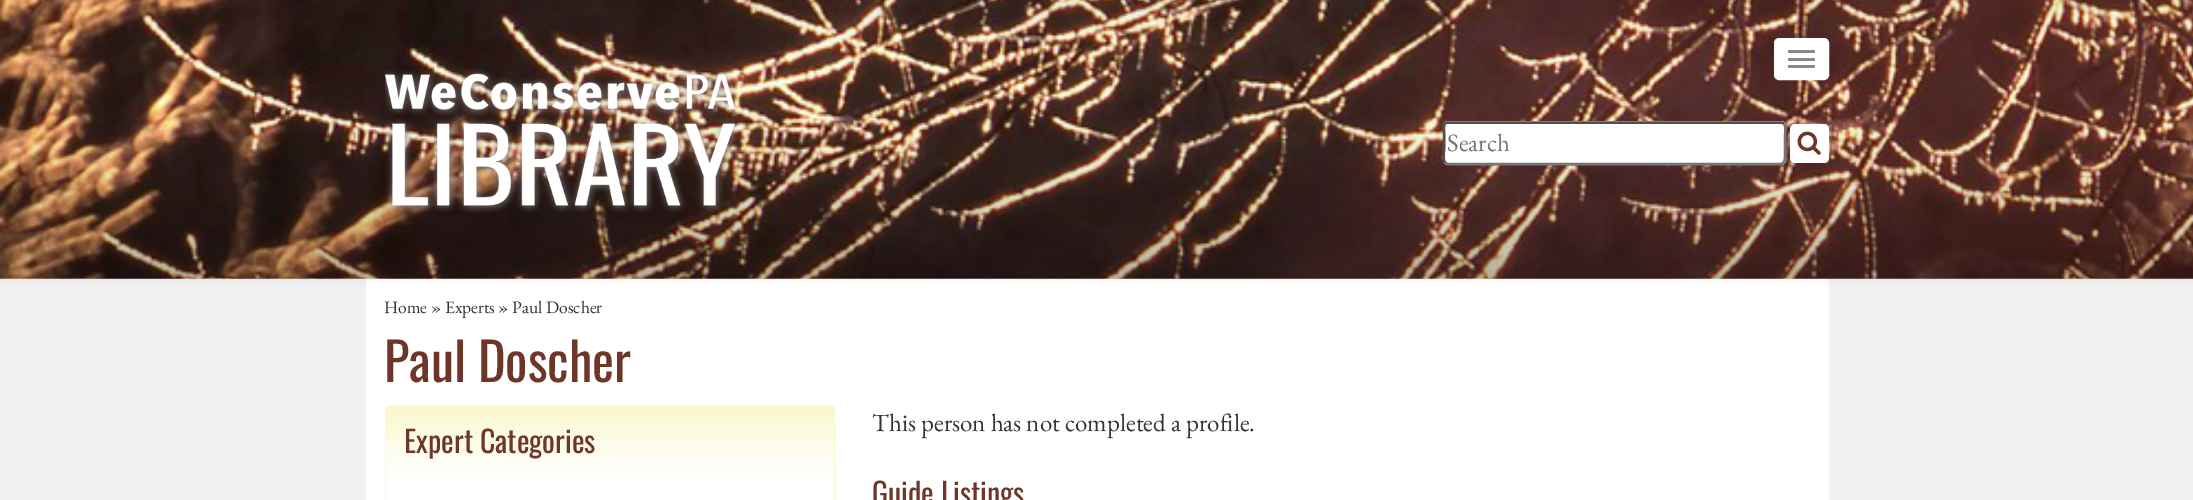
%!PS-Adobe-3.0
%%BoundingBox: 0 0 2193 500
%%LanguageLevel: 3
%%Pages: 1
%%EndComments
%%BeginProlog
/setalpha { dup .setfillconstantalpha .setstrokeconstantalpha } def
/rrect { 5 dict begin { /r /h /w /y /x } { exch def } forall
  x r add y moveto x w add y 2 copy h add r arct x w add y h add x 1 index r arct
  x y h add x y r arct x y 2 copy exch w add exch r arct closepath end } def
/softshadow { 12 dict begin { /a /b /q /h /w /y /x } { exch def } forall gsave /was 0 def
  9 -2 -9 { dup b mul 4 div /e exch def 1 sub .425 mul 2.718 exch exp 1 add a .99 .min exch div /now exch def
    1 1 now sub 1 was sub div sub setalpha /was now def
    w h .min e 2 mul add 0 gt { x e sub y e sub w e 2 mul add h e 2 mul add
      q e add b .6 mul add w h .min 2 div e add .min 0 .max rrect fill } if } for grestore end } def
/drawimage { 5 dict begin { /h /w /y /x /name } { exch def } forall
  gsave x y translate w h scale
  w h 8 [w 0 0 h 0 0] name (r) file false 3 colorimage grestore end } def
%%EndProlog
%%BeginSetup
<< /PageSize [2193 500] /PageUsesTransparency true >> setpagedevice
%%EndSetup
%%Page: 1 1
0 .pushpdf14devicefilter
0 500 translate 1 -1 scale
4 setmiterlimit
1 setgray
0 0 2193 500 rectfill
0.945 setgray
0 279 2193 221 rectfill
1 setgray
366 279 1463 221 rectfill
0 setgray
0 1 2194 279 0 3 0.07 softshadow
(images/1.raw) 0 0 2193 279 drawimage
1 setgray
1774.5 38.5 54 41 4.5 rrect gsave fill grestore
stroke
0.533 setgray
1788 50 27 3 1.5 rrect fill
1788 58 27 3 1.5 rrect fill
1788 65 27 3 1.5 rrect fill
(images/2.raw) 385 69 350 144 drawimage
1 setgray
1443 121 343 44 5 rrect fill
0.463 setgray
2.5 setlinewidth
newpath 1784 123.5 moveto 1786.5 126 1785 134.5 1785 137.5 curveto 1785 154.5 lineto 1785 157 1786 163.5 1781 164 curveto 1447.5 164 lineto 1445 162.5 lineto stroke
0.31 setgray
newpath 1445 162.5 moveto 1442.5 160 1444 151.5 1444 149 curveto 1444 132 lineto 1444 129 1442.5 122.5 1447.5 122.5 curveto 1781 122.5 lineto 1784 123.5 lineto stroke
1 setgray
1790 124 39 39 5 rrect fill
(images/3.raw) 1797 131 24 24 drawimage
0.98 0.973 0.8 setrgbcolor
1 setlinewidth
385.5 405.5 449 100 4.5 rrect stroke
gsave newpath 390 406 moveto 830 406 lineto 832 406 834 408 834 410 curveto 834 474 lineto 386 474 lineto 386 410 lineto 386 408 388 406 390 406 curveto closepath clip newpath
<< /ShadingType 2 /ColorSpace /DeviceRGB /Coords [610 406 610 474] /Extend [true true] /Function << /FunctionType 2 /Domain [0 1] /C0 [0.98 0.973 0.8] /C1 [1 1 1] /N 1 >> >> shfill grestore
/EBGaramond-Regular [25 0 0 -25 0 0] selectfont
0.459 setgray
1447 151 moveto (Search) show
/EBGaramond-Regular [17.5 0 0 -17.5 0 0] selectfont
0.2 setgray
384 313 moveto (Home » Experts » Paul Doscher) show
/Oswald-Regular [52.5 0 0 -52.5 0 0] selectfont
0.427 0.212 0.157 setrgbcolor
384 382 moveto (Paul Doscher) show
/Oswald-Regular [30 0 0 -30 0 0] selectfont
404 453 moveto (Expert Categories) show
/EBGaramond-Regular [25 0 0 -25 0 0] selectfont
0.2 setgray
872 431 moveto (This person has not completed a profile.) show
/Oswald-Regular [30 0 0 -30 0 0] selectfont
0.427 0.212 0.157 setrgbcolor
872 505 moveto (Guide Listings) show
.poppdf14devicefilter showpage
%%EOF
